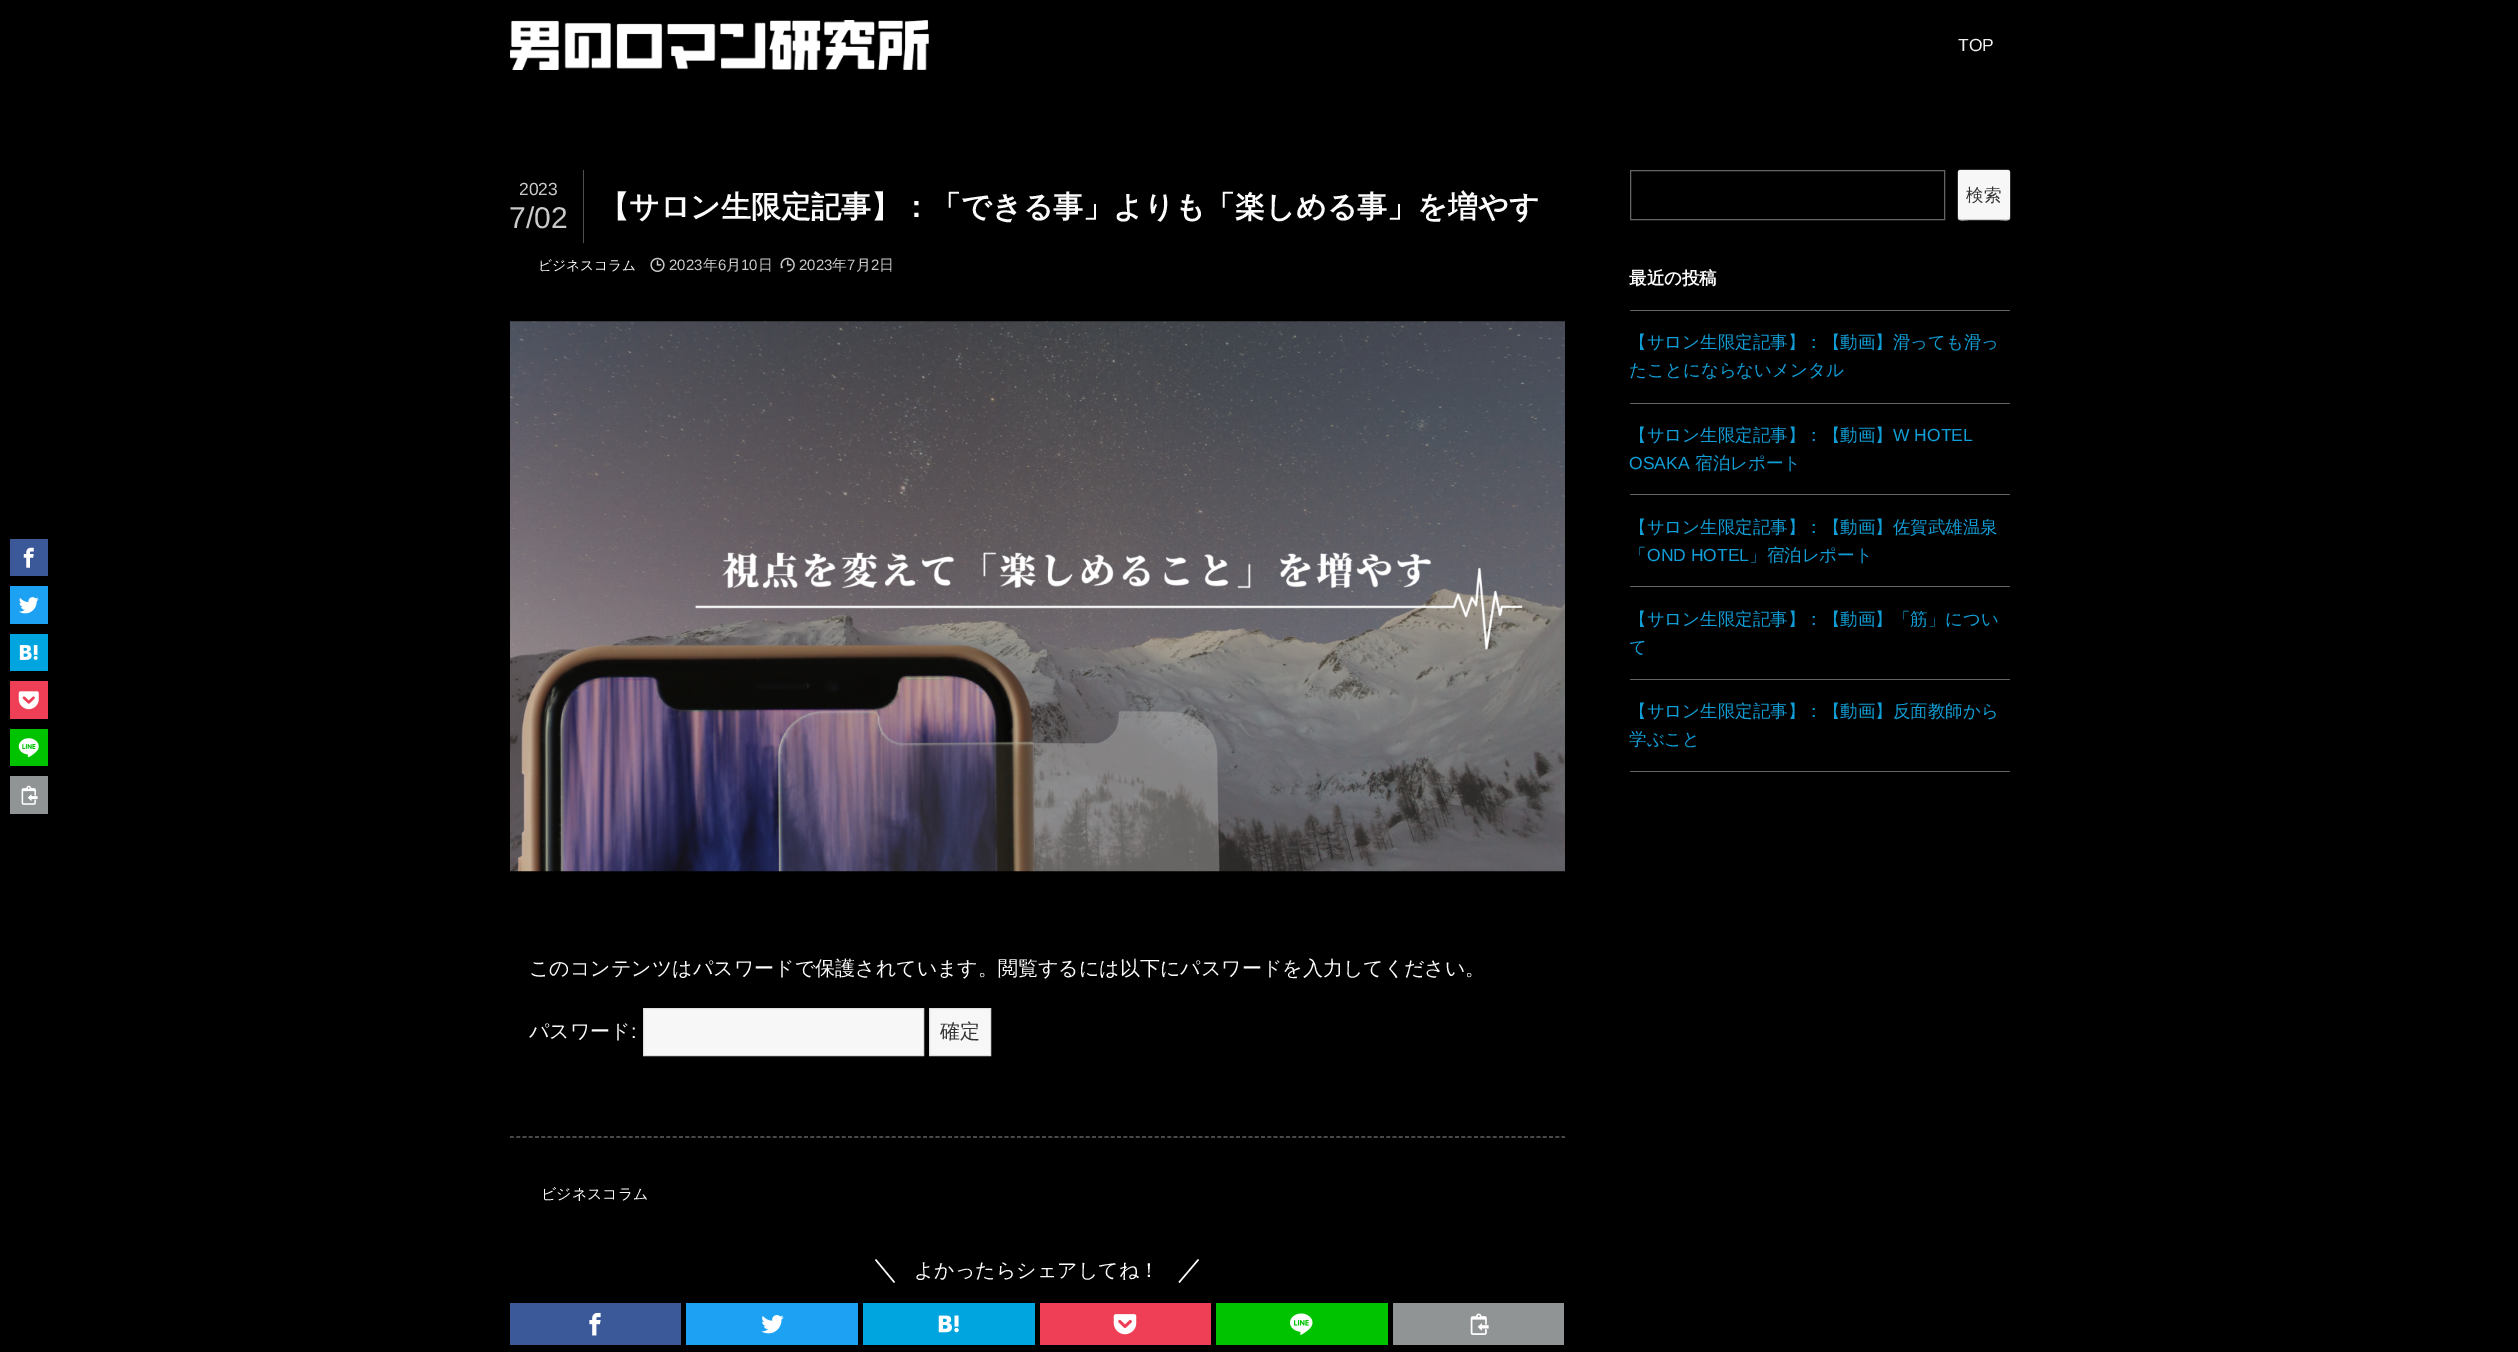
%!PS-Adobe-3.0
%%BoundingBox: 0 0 2518 1352
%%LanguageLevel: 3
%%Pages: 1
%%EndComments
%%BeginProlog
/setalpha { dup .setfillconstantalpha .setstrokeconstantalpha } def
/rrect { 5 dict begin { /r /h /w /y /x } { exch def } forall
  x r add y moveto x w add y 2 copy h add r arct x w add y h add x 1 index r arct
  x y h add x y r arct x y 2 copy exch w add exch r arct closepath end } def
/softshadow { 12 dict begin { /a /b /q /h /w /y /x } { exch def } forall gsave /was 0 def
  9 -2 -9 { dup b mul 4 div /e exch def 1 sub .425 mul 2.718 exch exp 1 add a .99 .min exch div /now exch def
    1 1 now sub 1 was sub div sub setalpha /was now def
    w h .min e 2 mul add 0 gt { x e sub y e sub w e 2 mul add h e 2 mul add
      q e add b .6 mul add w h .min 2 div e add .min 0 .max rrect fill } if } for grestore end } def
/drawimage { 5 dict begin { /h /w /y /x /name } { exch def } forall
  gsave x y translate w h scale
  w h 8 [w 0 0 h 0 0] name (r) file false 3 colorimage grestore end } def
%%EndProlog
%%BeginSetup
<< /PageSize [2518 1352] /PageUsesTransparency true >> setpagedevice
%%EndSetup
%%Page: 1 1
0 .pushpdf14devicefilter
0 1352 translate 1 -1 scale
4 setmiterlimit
0 setgray
0 0 2518 1352 rectfill
(images/1.raw) 510 20 419 50 drawimage
0.314 setgray
583 170 1 73 rectfill
(images/2.raw) 650 257 15 15 drawimage
(images/3.raw) 780 257 15 15 drawimage
0.231 0.349 0.596 setrgbcolor
10 539 38 37 rectfill
(images/4.raw) 23 547 11 21 drawimage
0.114 0.631 0.949 setrgbcolor
10 586 38 38 rectfill
(images/5.raw) 19 597 20 17 drawimage
0 0.643 0.871 setrgbcolor
10 634 38 37 rectfill
(images/6.raw) 19 645 19 15 drawimage
0.937 0.247 0.337 setrgbcolor
10 681 38 38 rectfill
(images/7.raw) 18 691 21 19 drawimage
0 0.765 0 setrgbcolor
10 729 38 37 rectfill
(images/8.raw) 18 738 21 20 drawimage
0.565 0.58 0.58 setrgbcolor
10 776 38 38 rectfill
(images/9.raw) 21 785 17 20 drawimage
(images/10.raw) 510 321 1055 551 drawimage
0.969 setgray
newpath 643.5 1008.5 moveto 923.5 1008.5 lineto 923.5 1055.5 lineto 643.5 1055.5 lineto closepath gsave fill grestore
0.875 setgray
stroke
0.969 setgray
newpath 929.5 1008.5 moveto 990.5 1008.5 lineto 990.5 1055.5 lineto 929.5 1055.5 lineto closepath gsave fill grestore
0.875 setgray
stroke
0.392 setgray
1.2 setlinewidth
[3.75 2.51] 0 setdash
newpath 510 1137 moveto 1565 1137 lineto stroke
0.988 setgray
newpath 875 1260 moveto 876 1259 lineto 895 1282 lineto 894 1283 lineto closepath fill
newpath 1198 1259 moveto 1199 1260 lineto 1179.5 1283 lineto 1178.5 1282 lineto closepath fill
0.231 0.349 0.596 setrgbcolor
510 1303 171 42 rectfill
(images/11.raw) 589 1312 12 24 drawimage
0.114 0.631 0.949 setrgbcolor
686 1303 172 42 rectfill
(images/12.raw) 761 1315 23 19 drawimage
0 0.643 0.871 setrgbcolor
863 1303 172 42 rectfill
(images/13.raw) 938 1315 21 18 drawimage
0.937 0.247 0.337 setrgbcolor
1040 1303 171 42 rectfill
(images/14.raw) 1113 1314 24 21 drawimage
0 0.765 0 setrgbcolor
1216 1303 172 42 rectfill
(images/15.raw) 1290 1313 23 22 drawimage
0.565 0.58 0.58 setrgbcolor
1393 1303 171 42 rectfill
(images/16.raw) 1470 1313 19 22 drawimage
0.392 setgray
1 setlinewidth
[] 0 setdash
1630.5 170.5 314 49 rectstroke
0.667 setgray
1958 170 52 50 2.5 0.5 1 softshadow
0.969 setgray
1958 170 52 50 2.5 rrect fill
0.8 setgray
newpath 1958 216 moveto 1958 222 1963 220 1968 220 curveto 2000 220 lineto 2005 220 2010 222 2010 216 curveto 2010 218 2009 219 2008 219 curveto 1960 219 lineto 1959 219 1958 218 1958 216 curveto closepath fill
0.392 setgray
1630 310 380 1 rectfill
1630 403 380 1 rectfill
1630 494 380 1 rectfill
1630 586 380 1 rectfill
1630 679 380 1 rectfill
1630 771 380 1 rectfill
/LiberationSans-Regular [17.5 0 0 -17.5 0 0] selectfont
0.937 setgray
1958 51 moveto (TOP) show
0.792 setgray
519 195 moveto (2023) show
/LiberationSans-Regular [30 0 0 -30 0 0] selectfont
509 228 moveto (7/02) show
/WenQuanYiZenHei-Bold [30 0 0 -30 0 0] selectfont
0.988 setgray
599 217 moveto (【サロン生限定記事】：「できる事」よりも「楽しめる事」を増やす) show
/WenQuanYiZenHei-Medium [13.75 0 0 -13.75 0 0] selectfont
538 270 moveto (ビジネスコラム) show
/LiberationSans-Regular [15 0 0 -15 0 0] selectfont
0.792 setgray
669 270 moveto (2023) show
/WenQuanYiZenHei-Medium [15 0 0 -15 0 0] selectfont
703 270 moveto (年) show
/LiberationSans-Regular [15 0 0 -15 0 0] selectfont
718 270 moveto (6) show
/WenQuanYiZenHei-Medium [15 0 0 -15 0 0] selectfont
726 270 moveto (月) show
/LiberationSans-Regular [15 0 0 -15 0 0] selectfont
741 270 moveto (10) show
/WenQuanYiZenHei-Medium [15 0 0 -15 0 0] selectfont
758 270 moveto (日) show
/LiberationSans-Regular [15 0 0 -15 0 0] selectfont
799 270 moveto (2023) show
/WenQuanYiZenHei-Medium [15 0 0 -15 0 0] selectfont
832 270 moveto (年) show
/LiberationSans-Regular [15 0 0 -15 0 0] selectfont
847 270 moveto (7) show
/WenQuanYiZenHei-Medium [15 0 0 -15 0 0] selectfont
856 270 moveto (月) show
/LiberationSans-Regular [15 0 0 -15 0 0] selectfont
871 270 moveto (2) show
/WenQuanYiZenHei-Medium [15 0 0 -15 0 0] selectfont
879 270 moveto (日) show
/WenQuanYiZenHei-Medium [20 0 0 -20 0 0] selectfont
0.988 setgray
529 975 moveto (このコンテンツはパスワードで保護されています。閲覧するには以下にパスワードを入力してください。) show
529 1038 moveto (パスワード) show
/LiberationSans-Regular [20 0 0 -20 0 0] selectfont
631 1038 moveto (:) show
/WenQuanYiZenHei-Medium [20 0 0 -20 0 0] selectfont
0.2 setgray
940 1038 moveto (確定) show
/WenQuanYiZenHei-Medium [15 0 0 -15 0 0] selectfont
0.988 setgray
541 1199 moveto (ビジネスコラム) show
/WenQuanYiZenHei-Medium [20 0 0 -20 0 0] selectfont
914 1277 moveto (よかったらシェアしてね！) show
/WenQuanYiZenHei-Medium [17.5 0 0 -17.5 0 0] selectfont
0.2 setgray
1966 201 moveto (検索) show
/WenQuanYiZenHei-Bold [17.5 0 0 -17.5 0 0] selectfont
0.988 setgray
1629 284 moveto (最近の投稿) show
/WenQuanYiZenHei-Medium [17.5 0 0 -17.5 0 0] selectfont
0.067 0.62 0.839 setrgbcolor
1629 348 moveto (【サロン生限定記事】：【動画】滑っても滑っ) show
1629 376 moveto (たことにならないメンタル) show
1629 441 moveto (【サロン生限定記事】：【動画】) show
/LiberationSans-Regular [17.5 0 0 -17.5 0 0] selectfont
1893 441 moveto (W HOTEL) show
1629 469 moveto (OSAKA) show
/WenQuanYiZenHei-Medium [17.5 0 0 -17.5 0 0] selectfont
1695 469 moveto (宿泊レポート) show
1629 533 moveto (【サロン生限定記事】：【動画】佐賀武雄温泉) show
1629 561 moveto (「) show
/LiberationSans-Regular [17.5 0 0 -17.5 0 0] selectfont
1647 561 moveto (OND HOTEL) show
/WenQuanYiZenHei-Medium [17.5 0 0 -17.5 0 0] selectfont
1749 561 moveto (」宿泊レポート) show
1629 625 moveto (【サロン生限定記事】：【動画】「筋」につい) show
1629 653 moveto (て) show
1629 717 moveto (【サロン生限定記事】：【動画】反面教師から) show
1629 745 moveto (学ぶこと) show
.poppdf14devicefilter showpage
%%EOF
